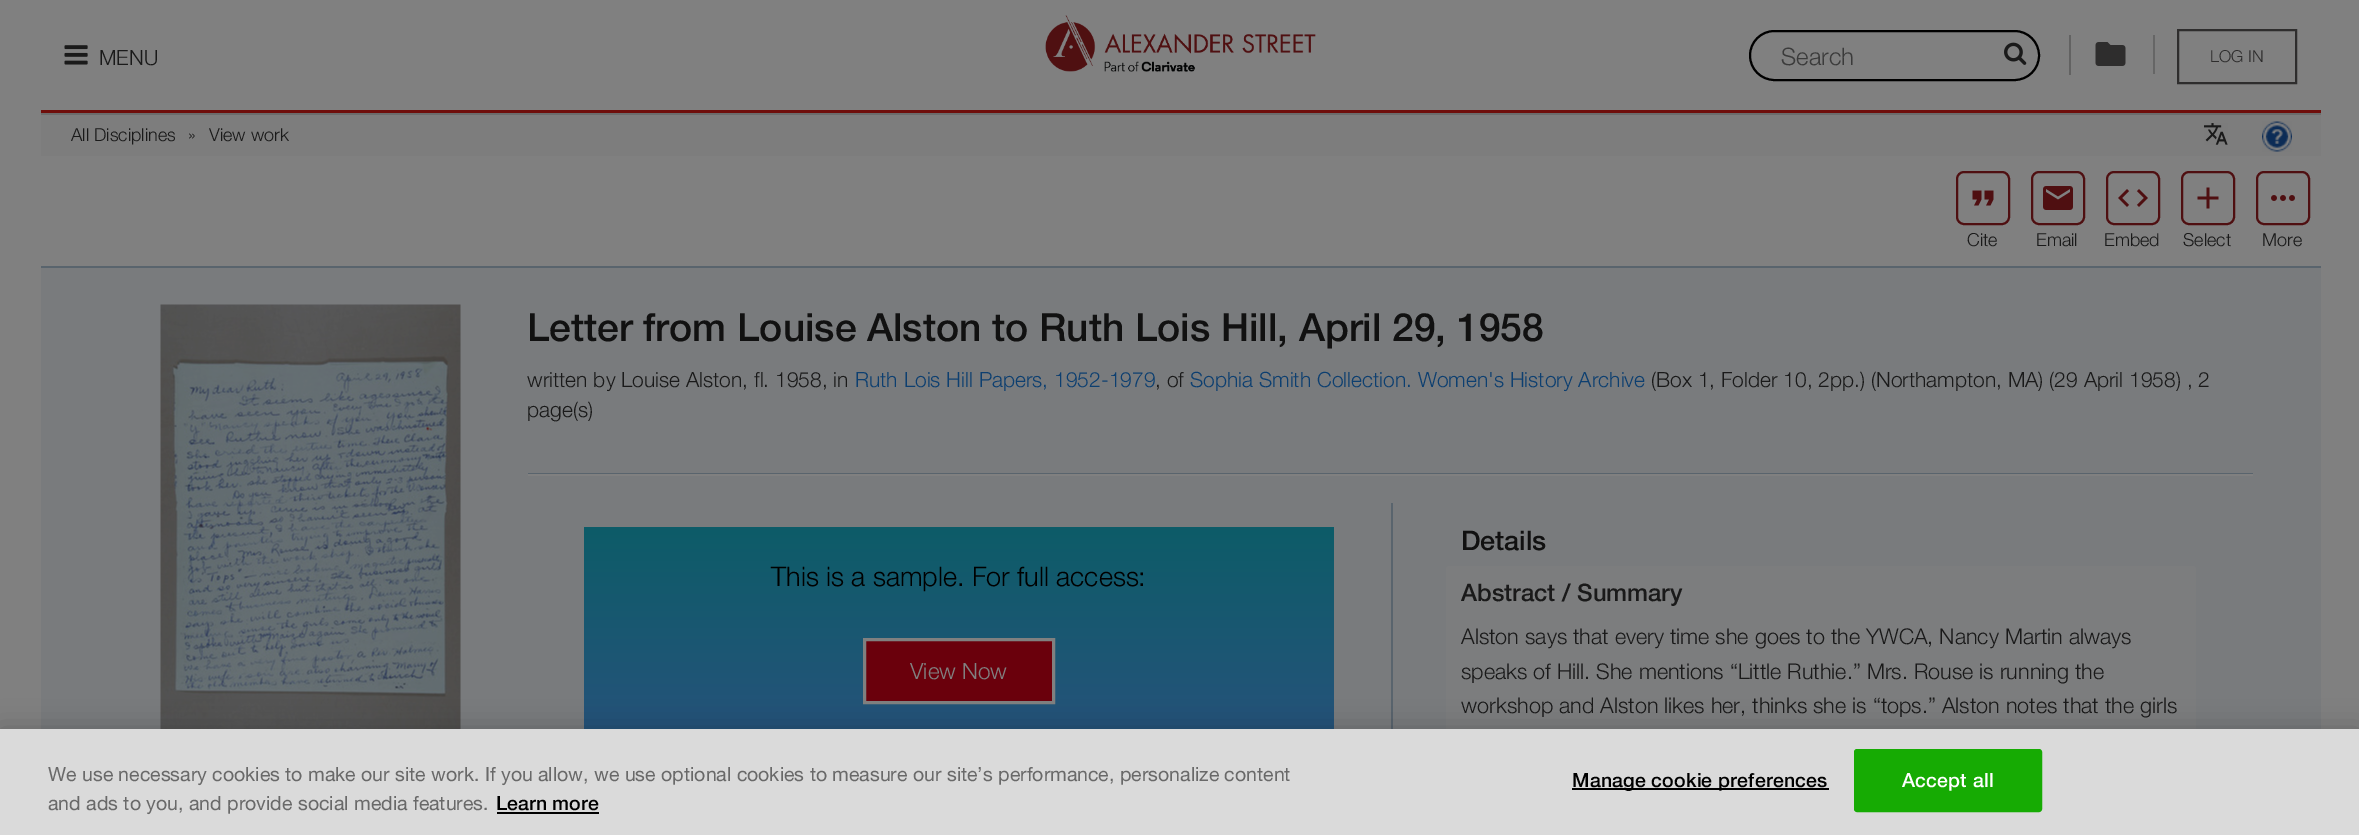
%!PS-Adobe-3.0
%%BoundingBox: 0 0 2359 835
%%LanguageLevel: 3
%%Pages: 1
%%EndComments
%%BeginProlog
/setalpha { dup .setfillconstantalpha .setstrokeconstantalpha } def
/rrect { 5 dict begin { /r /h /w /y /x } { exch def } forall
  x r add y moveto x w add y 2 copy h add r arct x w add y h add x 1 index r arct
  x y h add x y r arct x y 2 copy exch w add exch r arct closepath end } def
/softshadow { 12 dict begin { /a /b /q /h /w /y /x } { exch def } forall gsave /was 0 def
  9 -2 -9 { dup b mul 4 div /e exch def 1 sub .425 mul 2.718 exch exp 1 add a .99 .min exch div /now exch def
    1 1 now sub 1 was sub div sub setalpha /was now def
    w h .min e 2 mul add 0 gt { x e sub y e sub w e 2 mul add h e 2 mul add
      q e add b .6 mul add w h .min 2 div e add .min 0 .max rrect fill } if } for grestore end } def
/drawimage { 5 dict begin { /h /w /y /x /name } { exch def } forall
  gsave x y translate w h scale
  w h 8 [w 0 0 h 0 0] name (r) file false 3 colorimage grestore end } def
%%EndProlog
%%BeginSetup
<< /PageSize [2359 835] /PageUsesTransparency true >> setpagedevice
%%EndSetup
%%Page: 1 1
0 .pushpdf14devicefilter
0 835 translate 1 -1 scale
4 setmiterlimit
0.502 setgray
0 0 2359 835 rectfill
0.435 0.055 0.043 setrgbcolor
41 110 2280 3 rectfill
(images/1.raw) 64 45 24 20 drawimage
(images/2.raw) 1045 15 271 57 drawimage
0 setgray
2 setlinewidth
1750 31 289 49 24.5 rrect stroke
(images/3.raw) 2004 42 23 23 drawimage
0.384 setgray
2069 35 2 40 rectfill
(images/4.raw) 2095 42 31 24 drawimage
0.4 setgray
2153 35 2 39 rectfill
0.18 0.176 0.176 setrgbcolor
2178 30 118 53 rectstroke
0.49 setgray
41 115 2280 41 rectfill
0.424 setgray
41 113 2280 2 rectfill
(images/5.raw) 2204 123 24 22 drawimage
(images/6.raw) 2262 121 30 31 drawimage
0.31 0.059 0.067 setrgbcolor
1957 172 52 52 7 rrect stroke
(images/7.raw) 1972 190 22 16 drawimage
2032 172 52 52 7 rrect stroke
(images/8.raw) 2043 186 30 24 drawimage
2107 172 52 52 7 rrect stroke
(images/9.raw) 2118 189 30 18 drawimage
2182 172 52 52 7 rrect stroke
(images/10.raw) 2197 187 22 22 drawimage
2257 172 52 52 7 rrect stroke
(images/11.raw) 2271 195 24 6 drawimage
0.475 0.482 0.49 setrgbcolor
41 268 2280 461 rectfill
0.349 0.392 0.427 setrgbcolor
41 266 2280 2 rectfill
(images/12.raw) 160 304 301 425 drawimage
528 473 1725 1 rectfill
0.502 setgray
528 474 1725 2 rectfill
gsave newpath 584 527 moveto 1334 527 lineto 1334 729 lineto 584 729 lineto closepath clip newpath
<< /ShadingType 2 /ColorSpace /DeviceRGB /Coords [959 740 959 527] /Extend [true true] /Function << /FunctionType 2 /Domain [0 1] /C0 [0.149 0.325 0.482] /C1 [0.051 0.361 0.408] /N 1 >> >> shfill grestore
0.416 0 0.047 setrgbcolor
newpath 864.5 639.5 moveto 1053.5 639.5 lineto 1053.5 702.5 lineto 864.5 702.5 lineto closepath gsave fill grestore
0.502 setgray
3 setlinewidth
stroke
0.349 0.392 0.427 setrgbcolor
1391 503 2 226 rectfill
0.486 0.49 0.494 setrgbcolor
1446 566 750 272 3 rrect fill
0 setgray
0 729 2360 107 0 13.5 0.2 softshadow
0.855 setgray
0 729 2359 106 rectfill
0 setgray
497 812 102 2 rectfill
1572 788 257 2 rectfill
0.086 0.671 0.012 setrgbcolor
1855 750 186 61 2 rrect gsave fill grestore
2 setlinewidth
stroke
/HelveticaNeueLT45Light-Light [21 0 0 -21 0 0] selectfont
0.102 setgray
99 65 moveto (MENU) show
/HelveticaNeueLT45Light-Light [24 0 0 -24 0 0] selectfont
0.231 setgray
1781 65 moveto (Search) show
/HelveticaNeueLT45Light-Light [16.5 0 0 -16.5 0 0] selectfont
0.18 0.176 0.176 setrgbcolor
2210 62 moveto (LOG IN) show
/HelveticaNeueLT45Light-Light [18 0 0 -18 0 0] selectfont
0.102 setgray
71 141 moveto (All Disciplines) show
188 141 moveto (») show
209 141 moveto (View work) show
1967 246 moveto (Cite) show
2036 246 moveto (Email) show
2104 246 moveto (Embed) show
2183 246 moveto (Select) show
2262 246 moveto (More) show
/HelveticaNeue-Medium [39 0 0 -39 0 0] selectfont
0.067 setgray
527 341 moveto (Letter from Louise Alston to Ruth Lois Hill, April 29, 1958) show
/HelveticaNeueLT45Light-Light [21 0 0 -21 0 0] selectfont
0.102 setgray
527 387 moveto (written by Louise Alston, fl. 1958, in) show
0.051 0.247 0.439 setrgbcolor
855 387 moveto (Ruth Lois Hill Papers, 1952-1979) show
0.102 setgray
1155 387 moveto (, of) show
0.051 0.247 0.439 setrgbcolor
1190 387 moveto (Sophia Smith Collection. Women's History Archive) show
0.102 setgray
1651 387 moveto (\(Box 1, Folder 10, 2pp.\) \(Northampton, MA\) \(29 April 1958\) , 2) show
527 417 moveto (page\(s\)) show
/HelveticaNeueLT45Light-Light [27 0 0 -27 0 0] selectfont
0 setgray
771 586 moveto (This is a sample. For full access:) show
/HelveticaNeueLT45Light-Light [22.5 0 0 -22.5 0 0] selectfont
0.502 setgray
910 679 moveto (View Now) show
/HelveticaNeue-Medium [27 0 0 -27 0 0] selectfont
0.067 setgray
1461 550 moveto (Details) show
/HelveticaNeue-Medium [24 0 0 -24 0 0] selectfont
0.102 setgray
1461 601 moveto (Abstract / Summary) show
/HelveticaNeueLT45Light-Light [21.6 0 0 -21.6 0 0] selectfont
1461 644 moveto (Alston says that every time she goes to the YWCA, Nancy Martin always) show
1461 679 moveto (speaks of Hill. She mentions “Little Ruthie.” Mrs. Rouse is running the) show
1461 713 moveto (workshop and Alston likes her, thinks she is “tops.” Alston notes that the girls) show
/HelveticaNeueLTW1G-Regular [19.5 0 0 -19.5 0 0] selectfont
0.412 setgray
48 781 moveto (We use necessary cookies to make our site work. If you allow, we use optional cookies to measure our site’s performance, personalize content) show
48 810 moveto (and ads to you, and provide social media features.) show
/HelveticaNeue-Medium [19.5 0 0 -19.5 0 0] selectfont
0 setgray
496 810 moveto (Learn more) show
1572 787 moveto 0.2 0 (Manage cookie preferences) ashow
1 setgray
1902 787 moveto 0.2 0 (Accept all) ashow
.poppdf14devicefilter showpage
%%EOF
